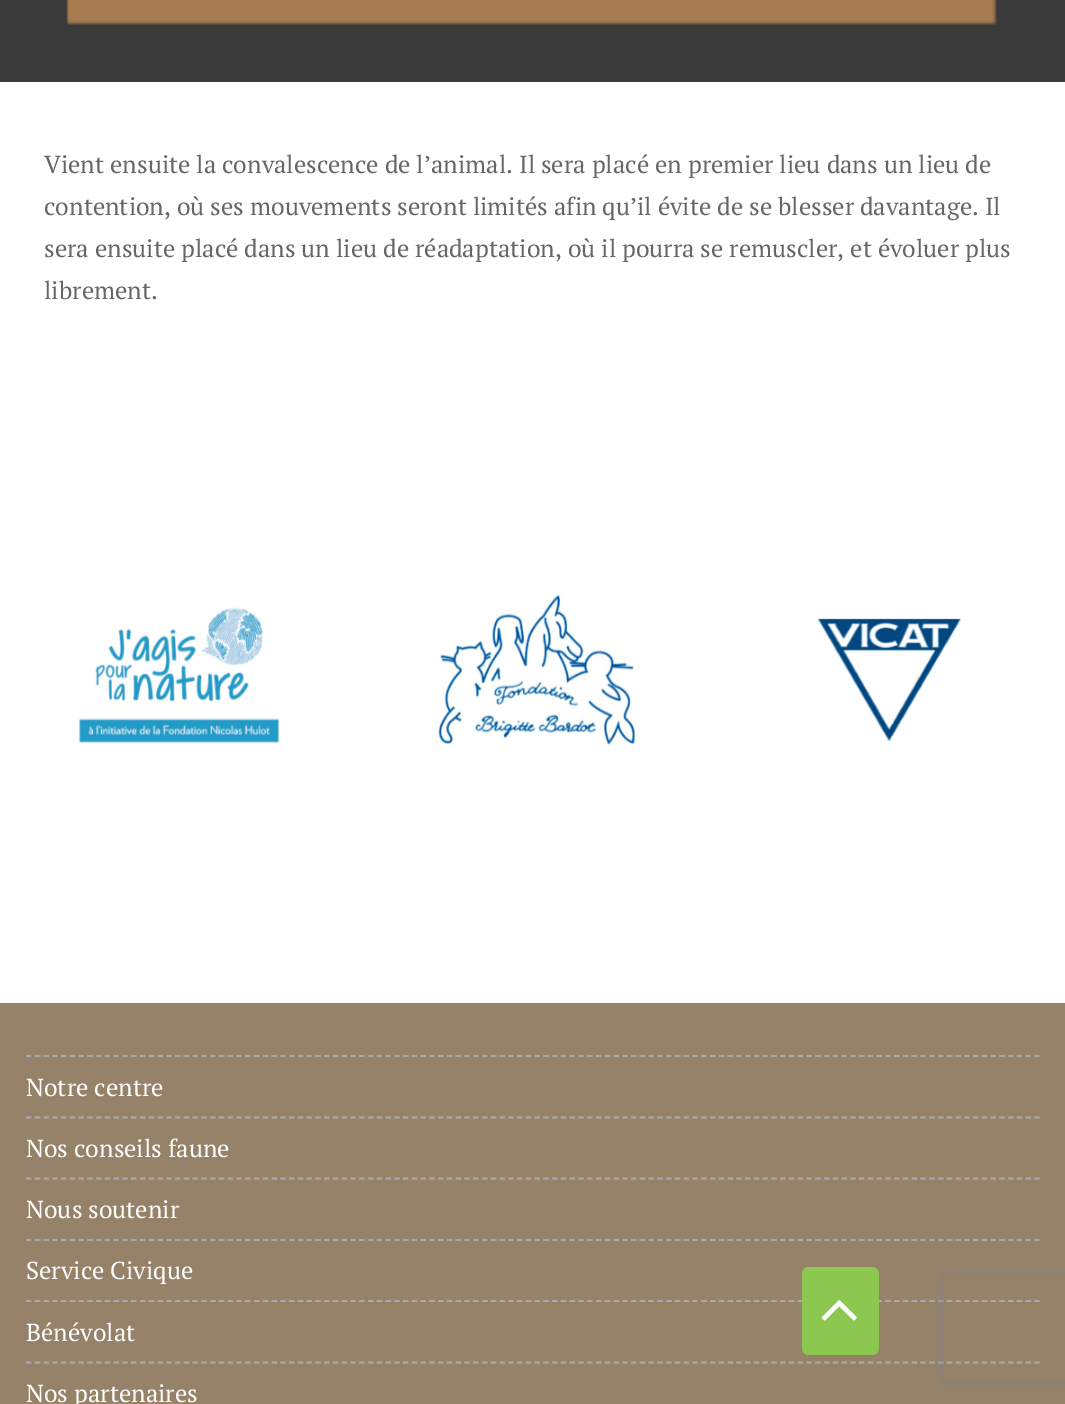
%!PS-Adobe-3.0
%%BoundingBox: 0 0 1065 1404
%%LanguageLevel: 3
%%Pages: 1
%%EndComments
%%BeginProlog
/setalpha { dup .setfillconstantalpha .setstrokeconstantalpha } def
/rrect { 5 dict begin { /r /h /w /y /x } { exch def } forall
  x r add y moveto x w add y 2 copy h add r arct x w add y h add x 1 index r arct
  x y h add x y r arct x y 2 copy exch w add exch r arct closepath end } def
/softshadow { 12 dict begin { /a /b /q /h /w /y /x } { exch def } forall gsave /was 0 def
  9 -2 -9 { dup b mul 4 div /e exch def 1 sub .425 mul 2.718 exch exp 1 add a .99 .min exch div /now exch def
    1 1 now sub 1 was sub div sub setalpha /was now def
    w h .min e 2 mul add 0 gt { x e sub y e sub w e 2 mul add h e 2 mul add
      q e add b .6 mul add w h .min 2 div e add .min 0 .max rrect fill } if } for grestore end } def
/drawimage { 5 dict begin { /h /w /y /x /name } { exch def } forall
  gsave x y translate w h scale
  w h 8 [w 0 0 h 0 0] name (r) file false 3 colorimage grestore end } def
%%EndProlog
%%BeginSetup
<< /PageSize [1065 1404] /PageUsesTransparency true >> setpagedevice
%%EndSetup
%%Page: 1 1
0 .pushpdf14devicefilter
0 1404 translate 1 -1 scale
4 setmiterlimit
1 setgray
0 0 1065 1404 rectfill
0.227 setgray
0 0 1065 82 rectfill
(images/1.raw) 66 0 931 25 drawimage
(images/2.raw) 78 607 202 136 drawimage
(images/3.raw) 438 594 197 151 drawimage
(images/4.raw) 817 618 144 124 drawimage
0.588 0.51 0.412 setrgbcolor
0 1003 1065 401 rectfill
0.667 setgray
1.8 setlinewidth
[5.25 3.52] 0 setdash
newpath 26 1056 moveto 1039.5 1056 lineto stroke
newpath 26 1117.5 moveto 1039.5 1117.5 lineto stroke
newpath 26 1178.5 moveto 1039.5 1178.5 lineto stroke
newpath 26 1240 moveto 1039.5 1240 lineto stroke
newpath 26 1301 moveto 1039.5 1301 lineto stroke
newpath 26 1362.5 moveto 1039.5 1362.5 lineto stroke
0.549 0.784 0.314 setrgbcolor
802 1267 77 88 7 rrect fill
(images/5.raw) 821 1300 36 21 drawimage
gsave
newpath 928 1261 moveto 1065 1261 lineto 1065 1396 lineto 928 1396 lineto closepath 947 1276 moveto 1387 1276 lineto 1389 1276 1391 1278 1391 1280 curveto 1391 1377 lineto 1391 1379 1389 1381 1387 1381 curveto 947 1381 lineto 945 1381 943 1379 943 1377 curveto 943 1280 lineto 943 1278 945 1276 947 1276 curveto closepath eoclip newpath
0.502 setgray
943 1276 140 105 4 4.5 1 softshadow
grestore
/PTSerif-Regular [24.5 0 0 -24.5 0 0] selectfont
0.4 setgray
44 173 moveto (Vient ensuite la convalescence de l’animal. Il sera placé en premier lieu dans un lieu de) show
44 215 moveto (contention, où ses mouvements seront limités afin qu’il évite de se blesser davantage. Il) show
44 257 moveto (sera ensuite placé dans un lieu de réadaptation, où il pourra se remuscler, et évoluer plus) show
44 299 moveto (librement.) show
1 setgray
26 1096 moveto (Notre centre) show
26 1157 moveto (Nos conseils faune) show
26 1218 moveto (Nous soutenir) show
26 1279 moveto (Service Civique) show
26 1341 moveto (Bénévolat) show
26 1402 moveto (Nos partenaires) show
.poppdf14devicefilter showpage
%%EOF
